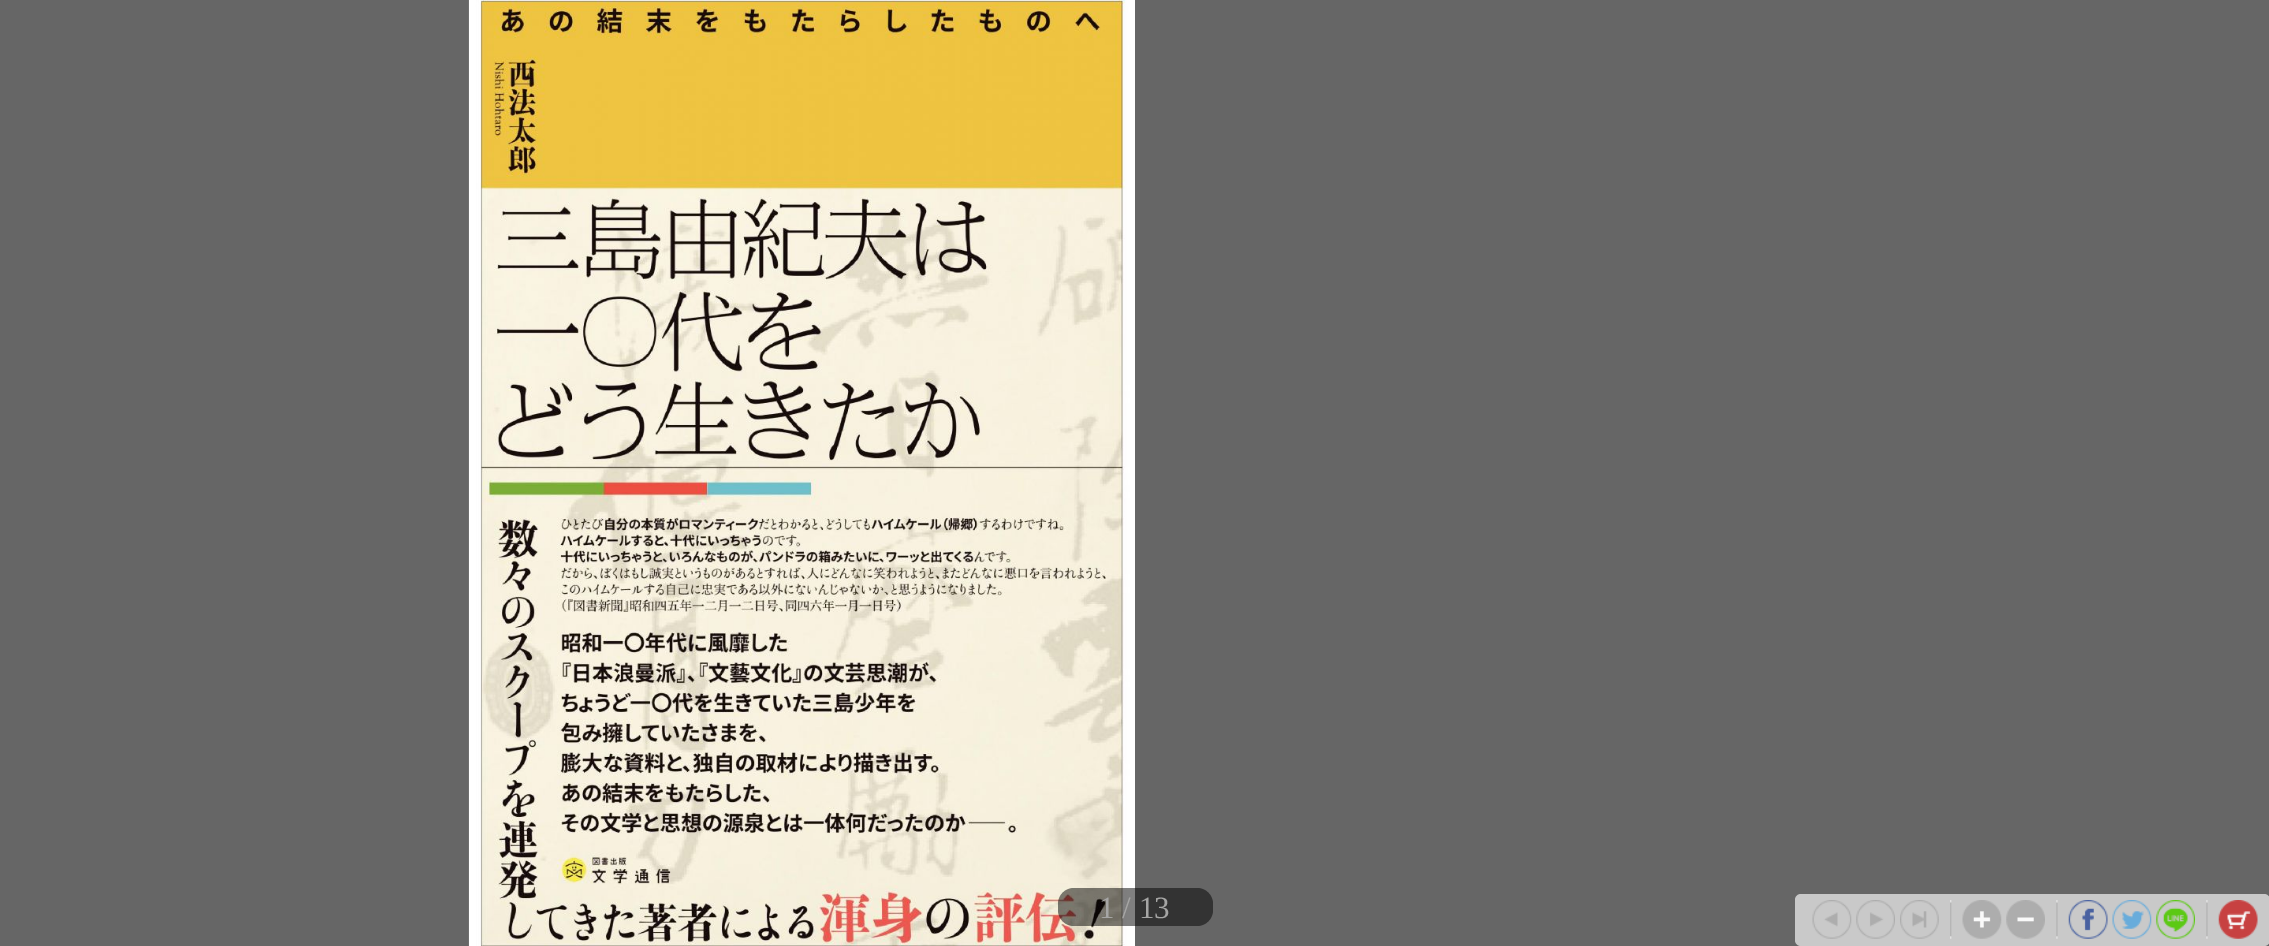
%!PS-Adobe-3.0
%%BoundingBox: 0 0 2269 946
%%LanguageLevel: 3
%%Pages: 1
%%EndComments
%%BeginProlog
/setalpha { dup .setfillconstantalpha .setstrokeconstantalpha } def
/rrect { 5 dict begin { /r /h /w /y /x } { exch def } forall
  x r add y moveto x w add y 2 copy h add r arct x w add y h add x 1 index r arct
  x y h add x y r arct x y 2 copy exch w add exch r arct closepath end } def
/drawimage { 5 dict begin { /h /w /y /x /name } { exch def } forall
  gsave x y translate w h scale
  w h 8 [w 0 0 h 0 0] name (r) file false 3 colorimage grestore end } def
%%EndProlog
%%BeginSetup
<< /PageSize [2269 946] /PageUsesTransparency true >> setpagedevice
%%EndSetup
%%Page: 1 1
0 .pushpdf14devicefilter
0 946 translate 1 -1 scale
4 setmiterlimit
0.4 setgray
0 0 2269 946 rectfill
(images/1.raw) 468 0 667 946 drawimage
0.5 setalpha
0 setgray
1058 888 155 38 16 rrect fill
1 setalpha
0.788 setgray
1795 894 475 52 6 rrect fill
(images/2.raw) 1812 900 40 39 drawimage
(images/3.raw) 1856 900 39 39 drawimage
(images/4.raw) 1900 900 39 39 drawimage
(images/5.raw) 1950 900 2 39 drawimage
(images/6.raw) 1962 900 40 39 drawimage
(images/7.raw) 2006 900 39 39 drawimage
(images/8.raw) 2056 900 2 39 drawimage
(images/9.raw) 2068 900 40 39 drawimage
(images/10.raw) 2112 900 40 39 drawimage
(images/11.raw) 2156 900 39 39 drawimage
(images/8.raw) 2206 900 2 39 drawimage
(images/12.raw) 2218 900 40 39 drawimage
/LiberationSerif-Regular [31 0 0 -31 0 0] selectfont
0.651 0.651 0.647 setrgbcolor
1099 918 moveto (1 / 13) show
.poppdf14devicefilter showpage
%%EOF
